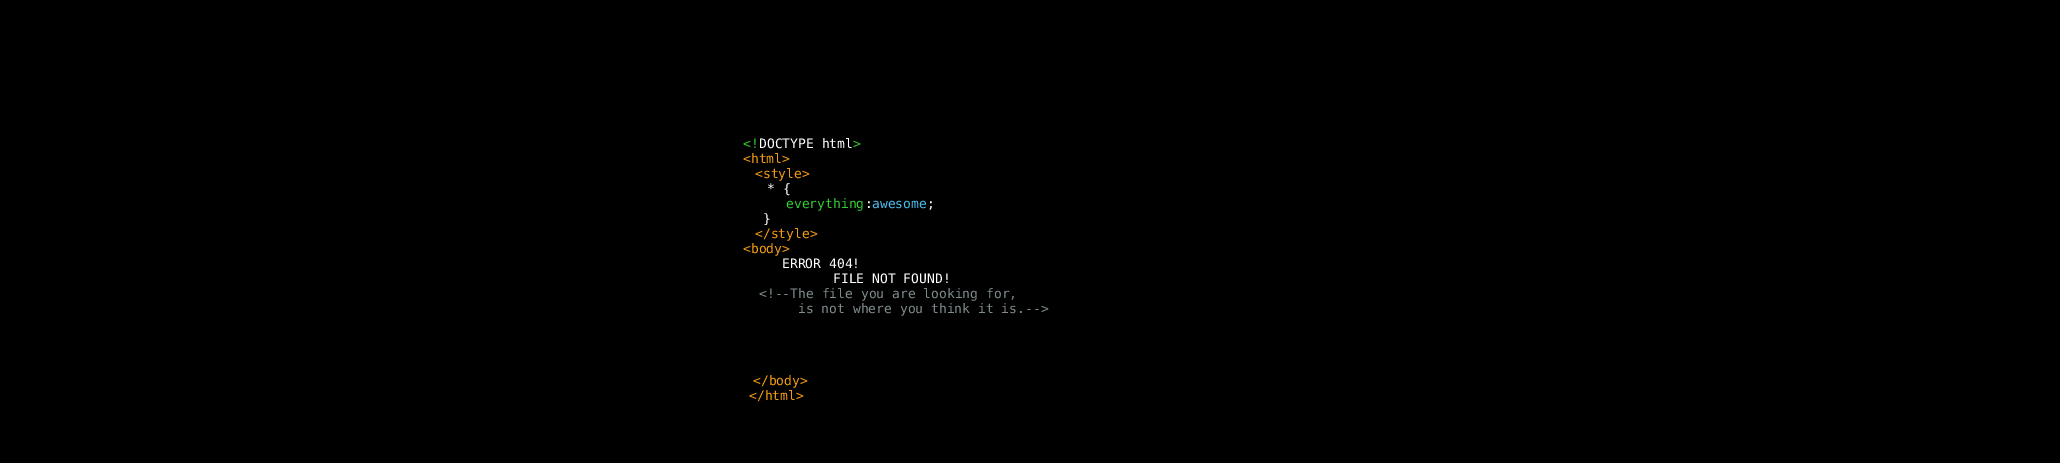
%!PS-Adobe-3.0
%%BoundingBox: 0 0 2060 463
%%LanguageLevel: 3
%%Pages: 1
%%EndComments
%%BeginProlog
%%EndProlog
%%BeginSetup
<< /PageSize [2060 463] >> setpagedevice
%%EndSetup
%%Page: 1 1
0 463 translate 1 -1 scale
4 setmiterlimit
0 setgray
0 0 2060 463 rectfill
/DejaVuSansMono-Regular [13 0 0 -13 0 0] selectfont
0.2 0.8 0.2 setrgbcolor
743 148 moveto (<!) show
1 setgray
759 148 moveto (DOCTYPE html) show
0.2 0.8 0.2 setrgbcolor
853 148 moveto (>) show
0.953 0.612 0.071 setrgbcolor
743 163 moveto (<html>) show
755 178 moveto (<style>) show
1 setgray
767 193 moveto (* {) show
0.2 0.8 0.2 setrgbcolor
786 208 moveto (everything) show
1 setgray
865 208 moveto (:) show
0.282 0.745 0.937 setrgbcolor
872 208 moveto (awesome) show
1 setgray
927 208 moveto (;) show
763 223 moveto (}) show
0.953 0.612 0.071 setrgbcolor
755 238 moveto (</style>) show
743 253 moveto (<body>) show
1 setgray
782 268 moveto (ERROR 404!) show
833 283 moveto (FILE NOT FOUND!) show
0.498 0.549 0.553 setrgbcolor
759 298 moveto (<!--The file you are looking for,) show
798 313 moveto (is not where you think it is.-->) show
0.953 0.612 0.071 setrgbcolor
753 385 moveto (</body>) show
749 400 moveto (</html>) show
showpage
%%EOF
